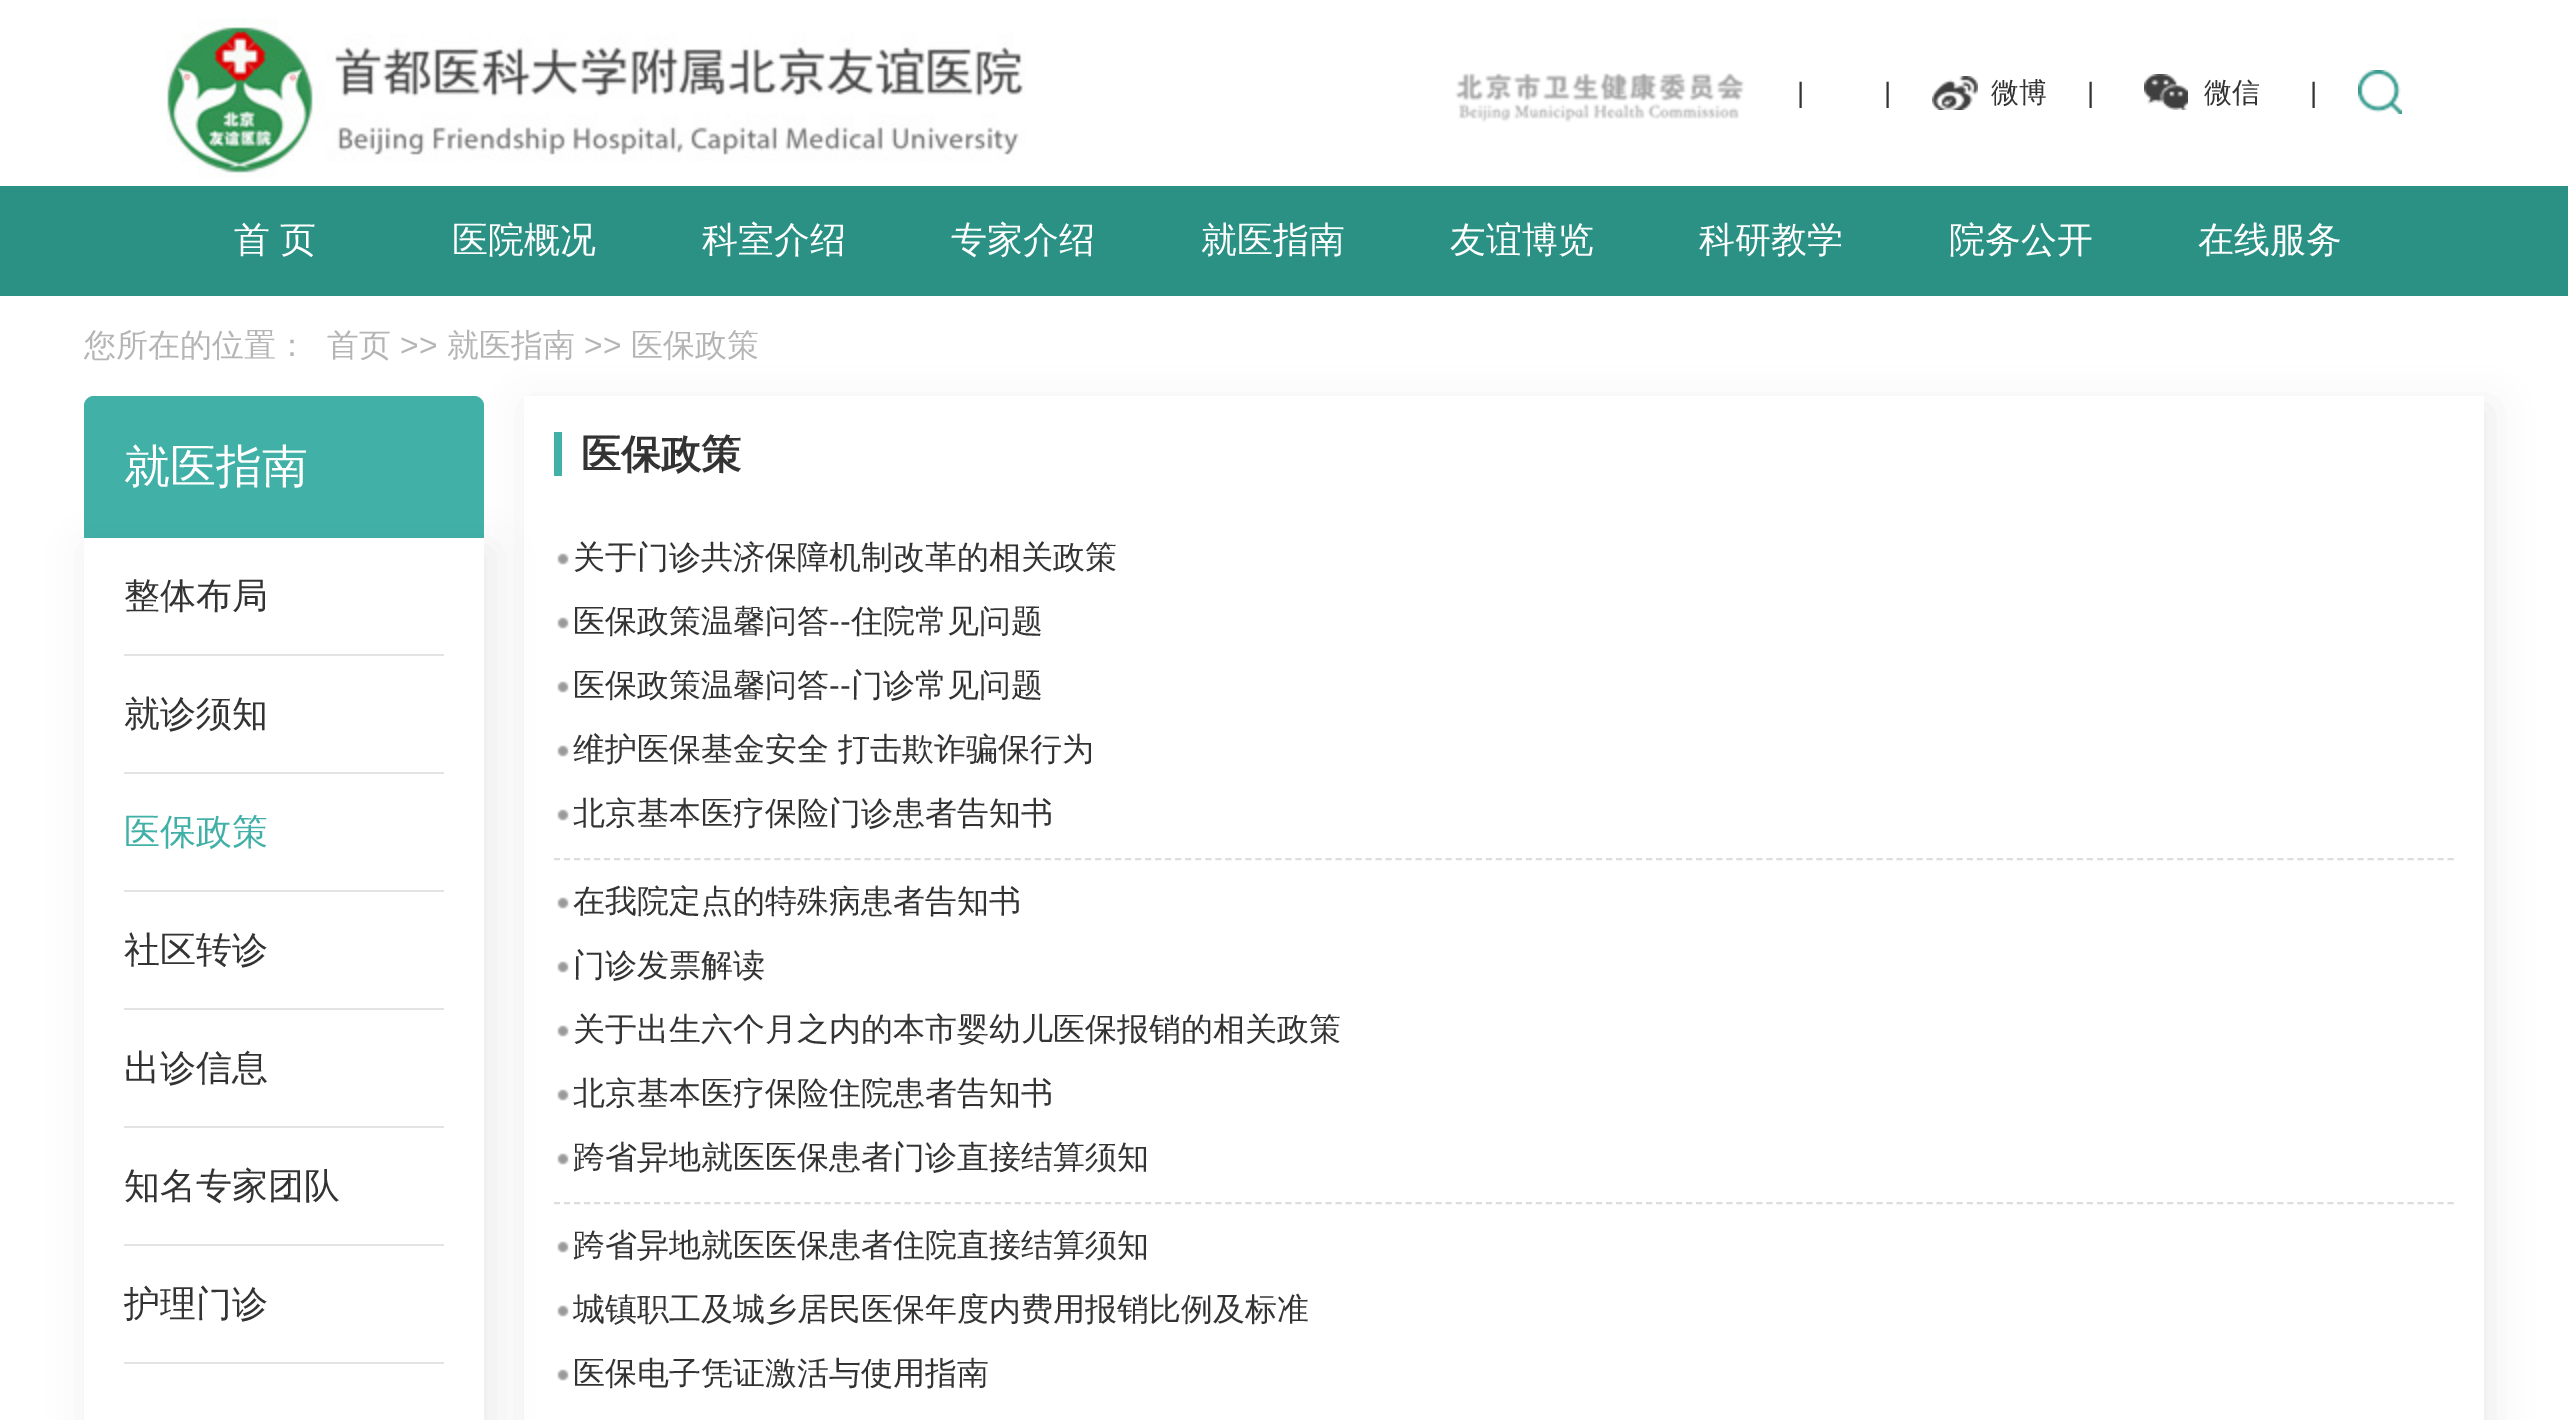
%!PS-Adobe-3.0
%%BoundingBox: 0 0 2568 1420
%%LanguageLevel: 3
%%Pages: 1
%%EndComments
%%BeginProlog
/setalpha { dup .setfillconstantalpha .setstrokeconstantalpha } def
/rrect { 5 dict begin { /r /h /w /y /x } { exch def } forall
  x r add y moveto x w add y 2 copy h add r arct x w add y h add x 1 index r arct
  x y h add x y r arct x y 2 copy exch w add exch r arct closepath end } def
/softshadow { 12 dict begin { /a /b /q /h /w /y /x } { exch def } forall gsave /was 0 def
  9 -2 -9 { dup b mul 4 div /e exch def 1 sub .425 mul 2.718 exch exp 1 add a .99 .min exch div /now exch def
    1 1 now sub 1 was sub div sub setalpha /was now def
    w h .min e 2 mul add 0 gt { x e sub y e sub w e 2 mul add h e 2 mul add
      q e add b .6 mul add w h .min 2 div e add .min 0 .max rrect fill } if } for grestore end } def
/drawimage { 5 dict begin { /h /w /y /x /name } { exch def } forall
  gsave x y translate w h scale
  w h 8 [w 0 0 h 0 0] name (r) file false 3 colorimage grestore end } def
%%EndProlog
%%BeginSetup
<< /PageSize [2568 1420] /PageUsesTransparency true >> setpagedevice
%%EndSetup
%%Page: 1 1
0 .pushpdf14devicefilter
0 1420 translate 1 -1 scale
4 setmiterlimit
1 setgray
0 0 2568 1420 rectfill
(images/1.raw) 166 18 860 160 drawimage
(images/2.raw) 1455 73 290 50 drawimage
(images/3.raw) 1932 76 46 34 drawimage
(images/4.raw) 2144 74 44 36 drawimage
(images/5.raw) 2358 70 44 44 drawimage
0.165 0.569 0.518 setrgbcolor
0 186 2568 110 rectfill
0.255 0.69 0.655 setrgbcolor
newpath 94 396 moveto 474 396 lineto 479.5 396 484 400.5 484 406 curveto 484 538 lineto 84 538 lineto 84 406 lineto 84 400.5 88.5 396 94 396 curveto closepath fill
gsave
newpath 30 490 moveto 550 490 lineto 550 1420 lineto 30 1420 lineto closepath 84 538 moveto 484 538 lineto 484 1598 lineto 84 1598 lineto closepath eoclip newpath
0.251 setgray
88 548 404 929 0 19 0.1 softshadow
grestore
0.89 setgray
124 654 320 2 rectfill
124 772 320 2 rectfill
124 890 320 2 rectfill
124 1008 320 2 rectfill
124 1126 320 2 rectfill
124 1244 320 2 rectfill
124 1362 320 2 rectfill
gsave
newpath 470 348 moveto 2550 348 lineto 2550 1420 lineto 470 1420 lineto closepath 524 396 moveto 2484 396 lineto 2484 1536 lineto 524 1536 lineto closepath eoclip newpath
0.251 setgray
528 406 1964 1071 0 19 0.1 softshadow
grestore
0.255 0.69 0.655 setrgbcolor
554 432 8 44 rectfill
(images/6.raw) 557 553 12 12 drawimage
(images/6.raw) 557 617 12 12 drawimage
(images/6.raw) 557 681 12 12 drawimage
(images/6.raw) 557 745 12 12 drawimage
(images/6.raw) 557 809 12 12 drawimage
0.867 setgray
2 setlinewidth
[6 4.02] 0 setdash
newpath 554 859 moveto 2454 859 lineto stroke
(images/6.raw) 557 897 12 12 drawimage
(images/6.raw) 557 961 12 12 drawimage
(images/6.raw) 557 1025 12 12 drawimage
(images/6.raw) 557 1089 12 12 drawimage
(images/6.raw) 557 1153 12 12 drawimage
newpath 554 1203 moveto 2454 1203 lineto stroke
(images/6.raw) 557 1241 12 12 drawimage
(images/6.raw) 557 1305 12 12 drawimage
(images/6.raw) 557 1369 12 12 drawimage
/LiberationSans-Regular [28 0 0 -28 0 0] selectfont
0.2 setgray
1797 102 moveto (|) show
1884 102 moveto (|) show
/WenQuanYiZenHei-Medium [28 0 0 -28 0 0] selectfont
1991 102 moveto (微博) show
/LiberationSans-Regular [28 0 0 -28 0 0] selectfont
2087 102 moveto (|) show
/WenQuanYiZenHei-Medium [28 0 0 -28 0 0] selectfont
2204 102 moveto (微信) show
/LiberationSans-Regular [28 0 0 -28 0 0] selectfont
2310 102 moveto (|) show
/WenQuanYiZenHei-Medium [36 0 0 -36 0 0] selectfont
1 setgray
234 252 moveto -1 0 32 (首 页) widthshow
452 252 moveto (医院概况) show
702 252 moveto (科室介绍) show
951 252 moveto (专家介绍) show
1201 252 moveto (就医指南) show
1450 252 moveto (友谊博览) show
1699 252 moveto (科研教学) show
1949 252 moveto (院务公开) show
2198 252 moveto (在线服务) show
/WenQuanYiZenHei-Medium [32 0 0 -32 0 0] selectfont
0.71 setgray
84 356 moveto (您所在的位置：) show
327 356 moveto (首页) show
/LiberationSans-Regular [32 0 0 -32 0 0] selectfont
400 356 moveto (>>) show
/WenQuanYiZenHei-Medium [32 0 0 -32 0 0] selectfont
447 356 moveto (就医指南) show
/LiberationSans-Regular [32 0 0 -32 0 0] selectfont
584 356 moveto (>>) show
/WenQuanYiZenHei-Medium [32 0 0 -32 0 0] selectfont
631 356 moveto (医保政策) show
/WenQuanYiZenHei-Medium [46 0 0 -46 0 0] selectfont
1 setgray
124 482 moveto (就医指南) show
/WenQuanYiZenHei-Medium [36 0 0 -36 0 0] selectfont
0.2 setgray
124 608 moveto (整体布局) show
124 726 moveto (就诊须知) show
0.255 0.69 0.655 setrgbcolor
124 844 moveto (医保政策) show
0.2 setgray
124 962 moveto (社区转诊) show
124 1080 moveto (出诊信息) show
124 1198 moveto (知名专家团队) show
124 1316 moveto (护理门诊) show
/WenQuanYiZenHei-Bold [40 0 0 -40 0 0] selectfont
581 468 moveto (医保政策) show
/WenQuanYiZenHei-Medium [32 0 0 -32 0 0] selectfont
573 568 moveto (关于门诊共济保障机制改革的相关政策) show
573 632 moveto (医保政策温馨问答) show
/LiberationSans-Regular [32 0 0 -32 0 0] selectfont
829 632 moveto (--) show
/WenQuanYiZenHei-Medium [32 0 0 -32 0 0] selectfont
851 632 moveto (住院常见问题) show
573 696 moveto (医保政策温馨问答) show
/LiberationSans-Regular [32 0 0 -32 0 0] selectfont
829 696 moveto (--) show
/WenQuanYiZenHei-Medium [32 0 0 -32 0 0] selectfont
851 696 moveto (门诊常见问题) show
573 760 moveto -1 0 32 (维护医保基金安全 打击欺诈骗保行为) widthshow
573 824 moveto (北京基本医疗保险门诊患者告知书) show
573 912 moveto (在我院定点的特殊病患者告知书) show
573 976 moveto (门诊发票解读) show
573 1040 moveto (关于出生六个月之内的本市婴幼儿医保报销的相关政策) show
573 1104 moveto (北京基本医疗保险住院患者告知书) show
573 1168 moveto (跨省异地就医医保患者门诊直接结算须知) show
573 1256 moveto (跨省异地就医医保患者住院直接结算须知) show
573 1320 moveto (城镇职工及城乡居民医保年度内费用报销比例及标准) show
573 1384 moveto (医保电子凭证激活与使用指南) show
.poppdf14devicefilter showpage
%%EOF
